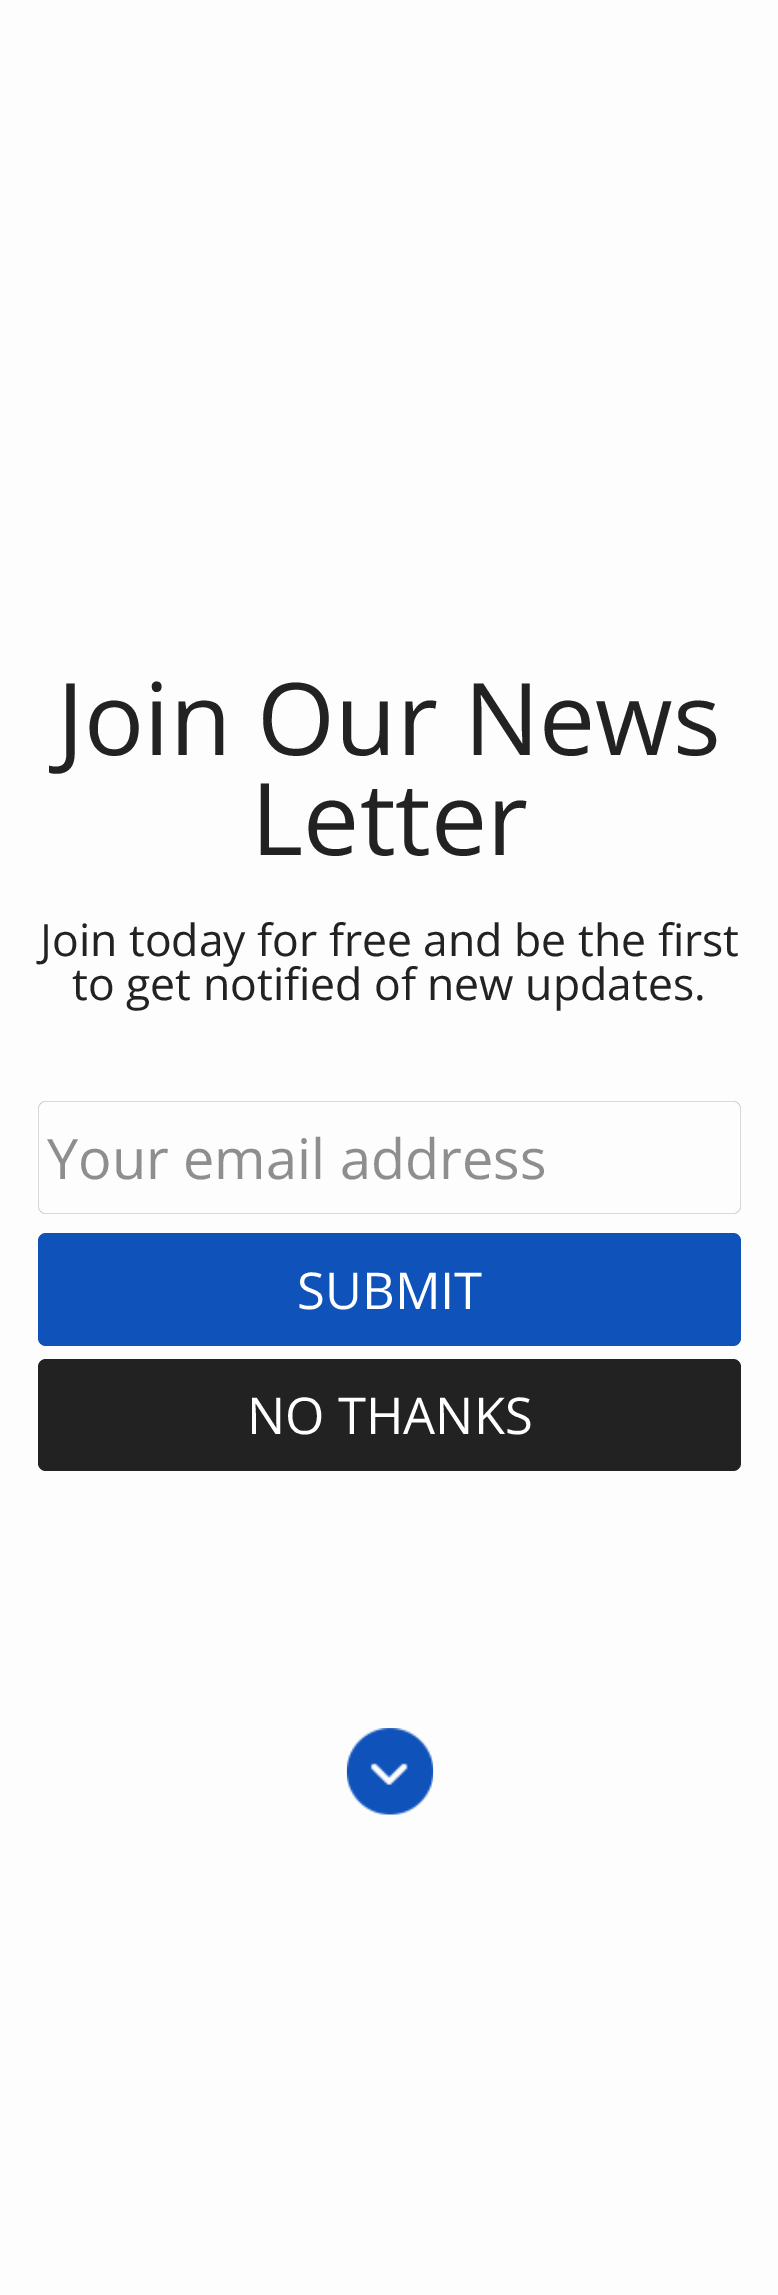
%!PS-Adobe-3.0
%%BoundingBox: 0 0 778 2295
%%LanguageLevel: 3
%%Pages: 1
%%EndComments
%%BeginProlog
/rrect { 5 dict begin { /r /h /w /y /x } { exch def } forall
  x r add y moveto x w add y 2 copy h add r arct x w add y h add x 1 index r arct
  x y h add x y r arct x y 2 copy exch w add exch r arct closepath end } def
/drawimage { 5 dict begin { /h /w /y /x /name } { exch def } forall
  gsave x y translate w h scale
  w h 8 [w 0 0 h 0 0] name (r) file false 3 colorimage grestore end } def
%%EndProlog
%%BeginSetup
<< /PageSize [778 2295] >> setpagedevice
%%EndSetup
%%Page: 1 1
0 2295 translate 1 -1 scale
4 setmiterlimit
0.992 0.992 0.996 setrgbcolor
0 0 778 2295 rectfill
0.8 setgray
0.6 setlinewidth
38.3 1101.3 702.4 112.4 7.7 rrect stroke
0.059 0.322 0.729 setrgbcolor
38 1233 703 113 8 rrect fill
0.133 setgray
38 1359 703 112 8 rrect fill
(images/1.raw) 346 1728 88 87 drawimage
/OpenSans-Regular [100.25 0 0 -100.25 0 0] selectfont
57 755 moveto (Join Our News) show
251 855 moveto (Letter) show
/OpenSans-Regular [44.5 0 0 -44.5 0 0] selectfont
40 956 moveto (Join today for free and be the first) show
72 1000 moveto (to get notified of new updates.) show
/OpenSans-Regular [55.75 0 0 -55.75 0 0] selectfont
0.557 setgray
47 1179 moveto (Your email address) show
/OpenSans-Regular [50.75 0 0 -50.75 0 0] selectfont
1 setgray
297 1309 moveto (SUBMIT) show
247 1434 moveto (NO THANKS) show
showpage
%%EOF
